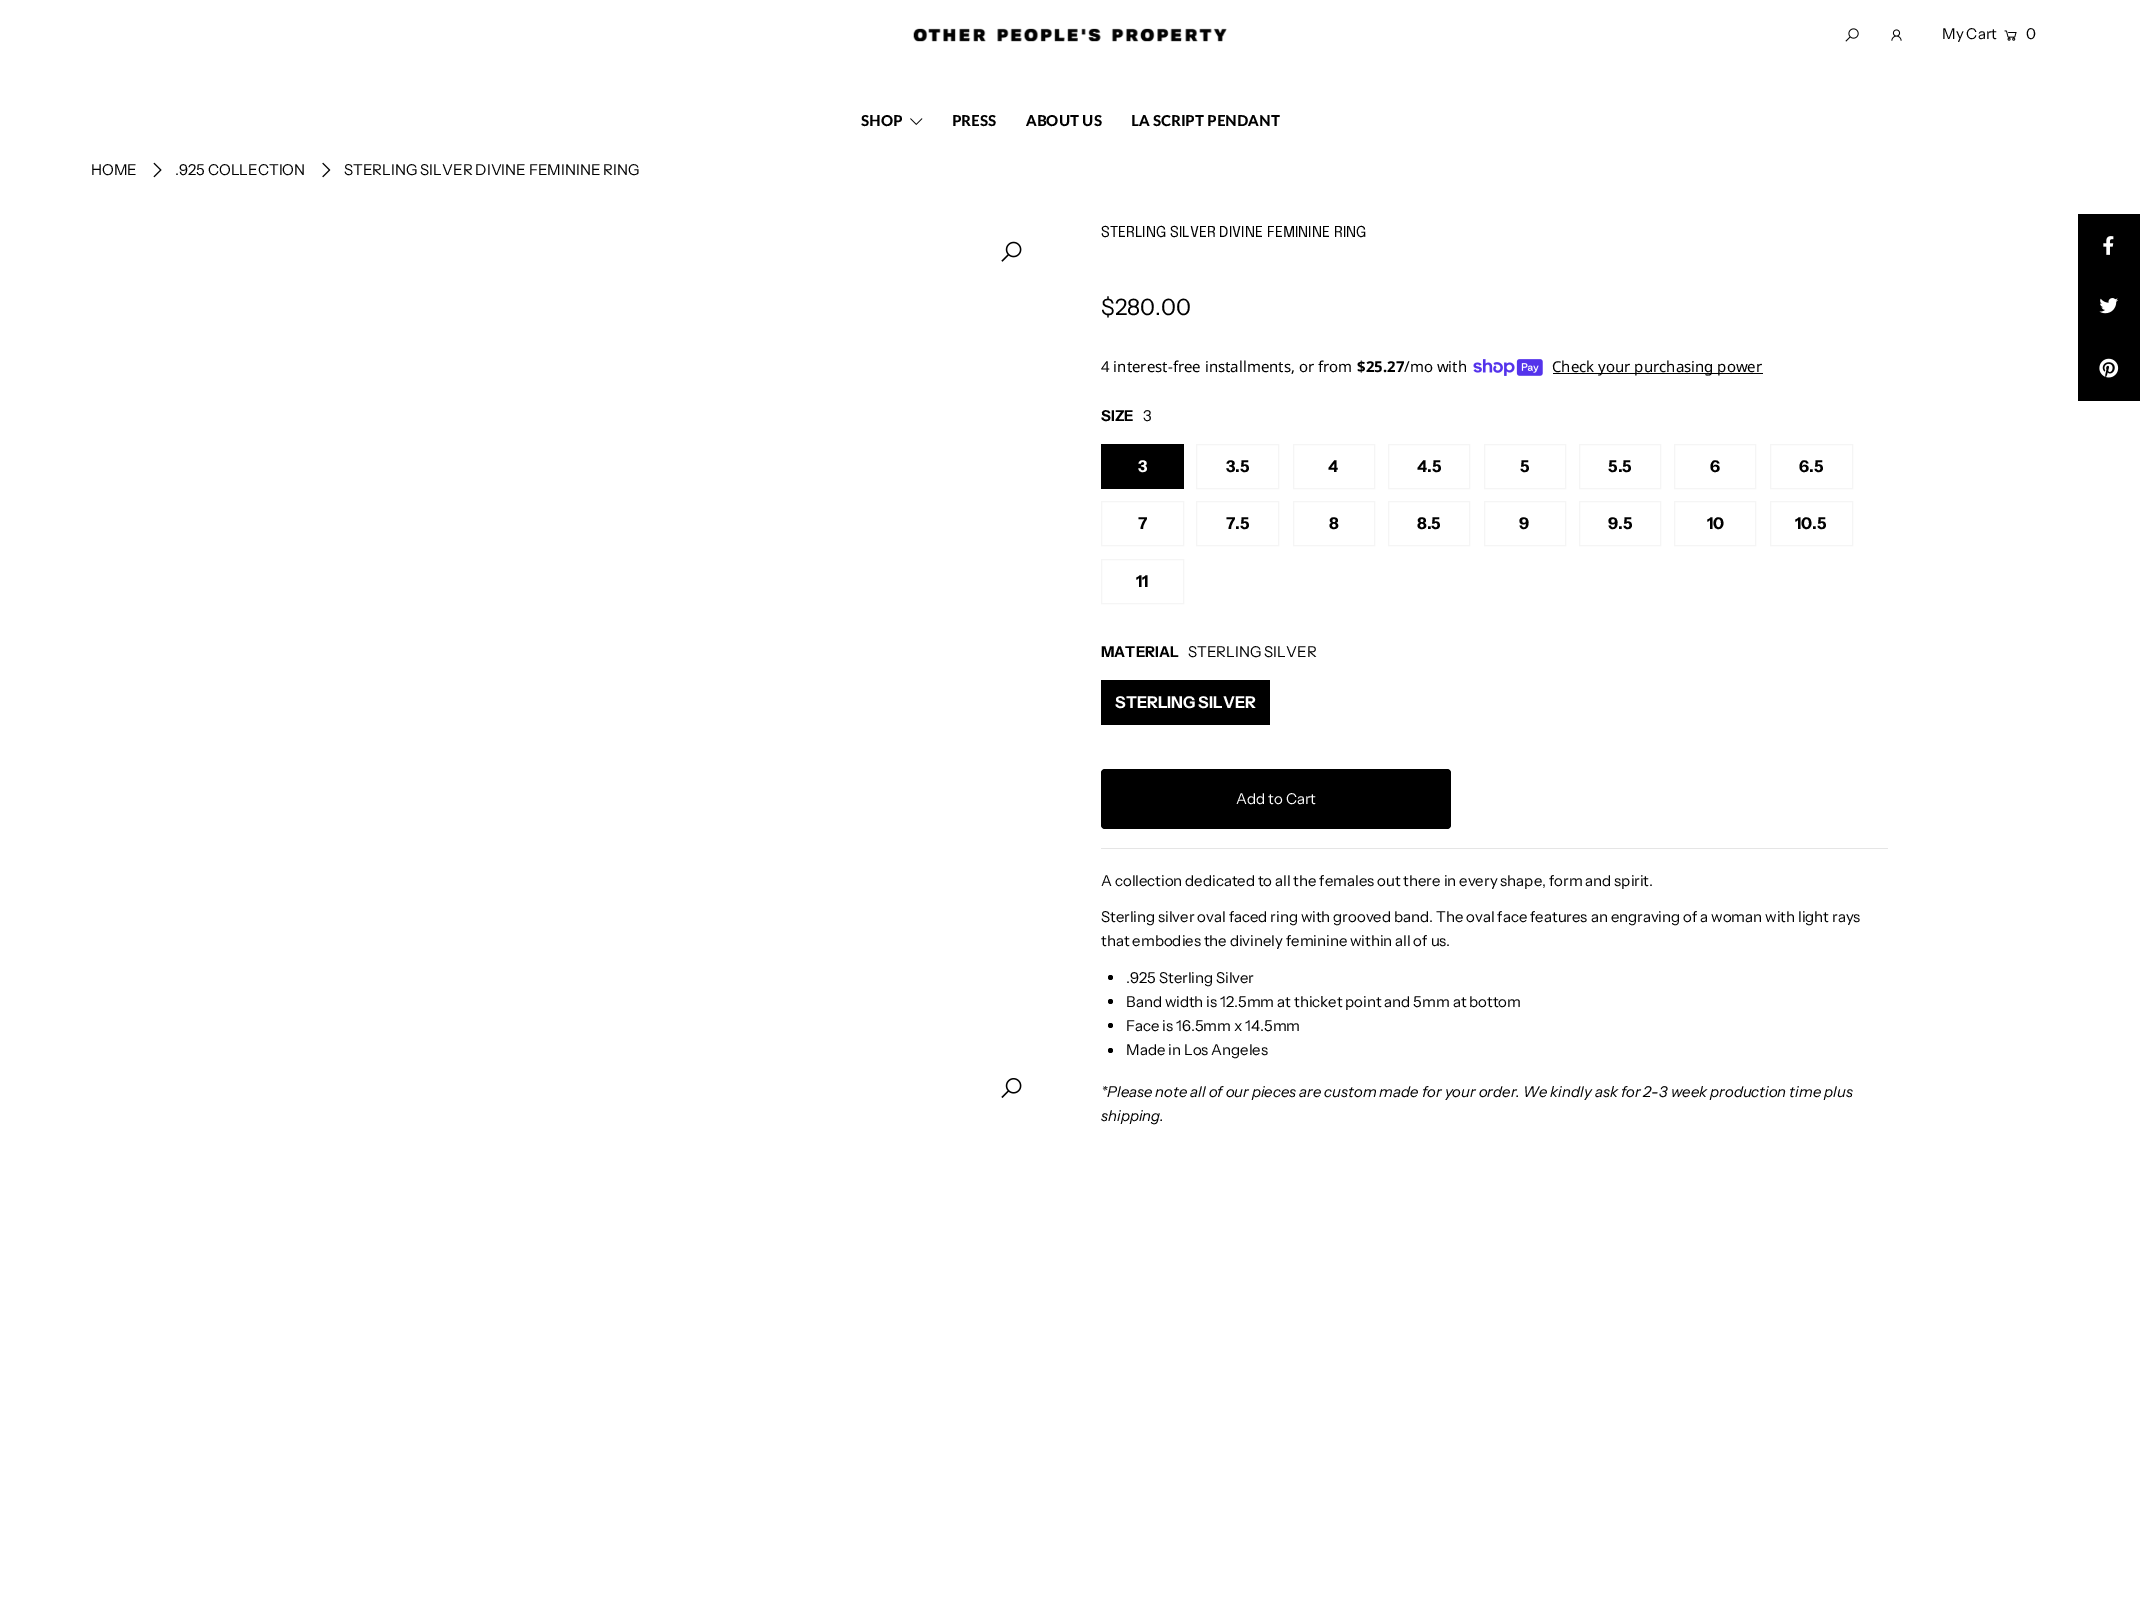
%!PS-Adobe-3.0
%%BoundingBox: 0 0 2140 1611
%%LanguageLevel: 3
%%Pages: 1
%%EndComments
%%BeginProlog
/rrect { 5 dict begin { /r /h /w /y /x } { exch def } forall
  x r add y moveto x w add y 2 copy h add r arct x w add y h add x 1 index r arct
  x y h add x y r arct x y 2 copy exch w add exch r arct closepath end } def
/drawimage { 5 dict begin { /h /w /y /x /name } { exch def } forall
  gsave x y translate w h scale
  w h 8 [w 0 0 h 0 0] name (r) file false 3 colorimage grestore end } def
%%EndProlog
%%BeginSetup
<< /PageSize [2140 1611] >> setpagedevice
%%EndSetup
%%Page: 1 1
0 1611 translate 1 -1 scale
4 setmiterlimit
1 setgray
0 0 2140 1611 rectfill
(images/1.raw) 913 28 314 14 drawimage
(images/2.raw) 1845 28 14 14 drawimage
(images/3.raw) 1891 29 11 12 drawimage
(images/4.raw) 2004 30 13 11 drawimage
(images/5.raw) 910 118 13 7 drawimage
(images/6.raw) 153 162 9 16 drawimage
(images/7.raw) 322 162 9 16 drawimage
(images/8.raw) 1001 241 21 21 drawimage
(images/9.raw) 1001 1078 21 20 drawimage
0.898 setgray
1101 848 787 1 rectfill
(images/10.raw) 1473 359 70 17 drawimage
0 setgray
1553 373 210 1 rectfill
1101 444 83 45 rectfill
0.961 setgray
1196.5 444.5 82 44 rectstroke
1293.5 444.5 81 44 rectstroke
1388.5 444.5 81 44 rectstroke
1484.5 444.5 81 44 rectstroke
1579.5 444.5 81 44 rectstroke
1674.5 444.5 81 44 rectstroke
1770.5 444.5 82 44 rectstroke
1101.5 501.5 82 44 rectstroke
1196.5 501.5 82 44 rectstroke
1293.5 501.5 81 44 rectstroke
1388.5 501.5 81 44 rectstroke
1484.5 501.5 81 44 rectstroke
1579.5 501.5 81 44 rectstroke
1674.5 501.5 81 44 rectstroke
1770.5 501.5 82 44 rectstroke
1101.5 559.5 82 44 rectstroke
0 setgray
1101 680 169 45 rectfill
1101 769 350 60 4 rrect fill
newpath 1110.5 977.5 2.5 0 360 arc closepath fill
newpath 1110.5 1001.5 2.5 0 360 arc closepath fill
newpath 1110.5 1025.5 2.5 0 360 arc closepath fill
newpath 1110.5 1050.5 2.5 0 360 arc closepath fill
2078 214 62 187 rectfill
(images/11.raw) 2103 236 11 19 drawimage
(images/12.raw) 2099 298 19 16 drawimage
(images/13.raw) 2099 358 20 20 drawimage
/InstrumentSans-Regular [15 0 0 -15 0 0] selectfont
1942 39 moveto (My Cart) show
2026 39 moveto (0) show
/Lato-Black [15 0 0 -15 0 0] selectfont
861 126 moveto (SHOP) show
952 126 moveto (PRESS) show
1026 126 moveto (ABOUT US) show
1131 126 moveto (LA SCRIPT PENDANT) show
/InstrumentSans-Regular [15 0 0 -15 0 0] selectfont
91 175 moveto (HOME) show
175 175 moveto (.925 COLLECTION) show
344 175 moveto (STERLING SILVER DIVINE FEMININE RING) show
/Epilogue-Regular [15 0 0 -15 0 0] selectfont
1101 237 moveto (STERLING SILVER DIVINE FEMININE RING) show
/InstrumentSans-Regular [22.5 0 0 -22.5 0 0] selectfont
1101 315 moveto ($280.00) show
/NotoSans-Regular [15 0 0 -15 0 0] selectfont
1101 372 moveto (4 interest-free installments, or from) show
/NotoSans-Bold [15 0 0 -15 0 0] selectfont
1357 372 moveto ($25.27) show
/NotoSans-Regular [15 0 0 -15 0 0] selectfont
1404 372 moveto (/mo with) show
1552 372 moveto (Check your purchasing power) show
/InstrumentSans-Bold [15 0 0 -15 0 0] selectfont
1101 421 moveto (SIZE) show
/InstrumentSans-Regular [15 0 0 -15 0 0] selectfont
1143 421 moveto (3) show
/InstrumentSans-Bold [16.25 0 0 -16.25 0 0] selectfont
1 setgray
1138 472 moveto (3) show
0 setgray
1226 472 moveto (3.5) show
1328 472 moveto (4) show
1417 472 moveto (4.5) show
1520 472 moveto (5) show
1608 472 moveto (5.5) show
1710 472 moveto (6) show
1799 472 moveto (6.5) show
1138 529 moveto (7) show
1226 529 moveto (7.5) show
1329 529 moveto (8) show
1417 529 moveto (8.5) show
1519 529 moveto (9) show
1608 529 moveto (9.5) show
1707 529 moveto (10) show
1795 529 moveto (10.5) show
1136 587 moveto (11) show
/InstrumentSans-Bold [15 0 0 -15 0 0] selectfont
1101 657 moveto (MATERIAL) show
/InstrumentSans-Regular [15 0 0 -15 0 0] selectfont
1188 657 moveto (STERLING SILVER) show
/InstrumentSans-Bold [16.25 0 0 -16.25 0 0] selectfont
1 setgray
1115 708 moveto (STERLING SILVER) show
/InstrumentSans-Regular [15 0 0 -15 0 0] selectfont
1236 804 moveto (Add to Cart) show
0 setgray
1101 886 moveto (A collection dedicated to all the females out there in every shape, form and spirit.) show
1101 922 moveto (Sterling silver oval faced ring with grooved band. The oval face features an engraving of a woman with light rays) show
1101 946 moveto (that embodies the divinely feminine within all of us.) show
1126 983 moveto (.925 Sterling Silver) show
1126 1007 moveto (Band width is 12.5mm at thicket point and 5mm at bottom) show
1126 1031 moveto (Face is 16.5mm x 14.5mm) show
1126 1055 moveto (Made in Los Angeles) show
/InstrumentSans-Italic [15 0 0 -15 0 0] selectfont
1101 1097 moveto (*Please note all of our pieces are custom made for your order. We kindly ask for 2-3 week production time plus) show
1101 1121 moveto (shipping.) show
showpage
%%EOF
